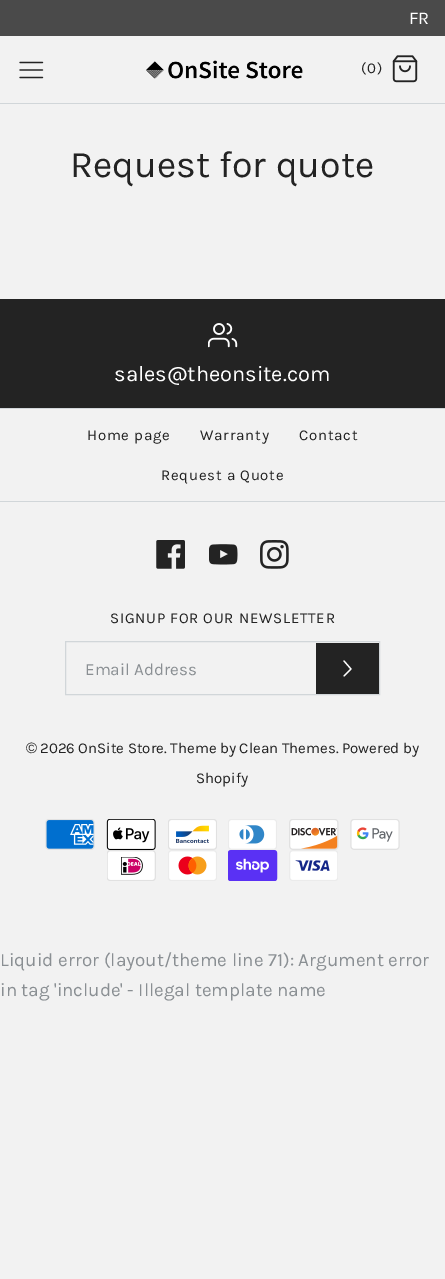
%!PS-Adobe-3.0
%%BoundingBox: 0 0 445 1279
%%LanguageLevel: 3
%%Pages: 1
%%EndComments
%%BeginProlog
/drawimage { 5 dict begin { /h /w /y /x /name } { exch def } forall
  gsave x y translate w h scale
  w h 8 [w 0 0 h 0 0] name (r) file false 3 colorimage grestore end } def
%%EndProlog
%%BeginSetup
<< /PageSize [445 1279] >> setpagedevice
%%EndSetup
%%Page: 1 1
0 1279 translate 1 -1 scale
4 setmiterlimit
0.949 setgray
0 0 445 1279 rectfill
0.29 setgray
0 0 445 36 rectfill
0.82 0.839 0.851 setrgbcolor
0 103 445 1 rectfill
0.137 setgray
1.2 setlinewidth
1 setlinecap
1 setlinejoin
newpath 20 70 moveto 42.5 70 lineto 20 62.5 moveto 42.5 62.5 lineto 20 77.5 moveto 42.5 77.5 lineto stroke
(images/1.raw) 146 60 157 19 drawimage
(images/2.raw) 392 55 26 28 drawimage
0 299 445 109 rectfill
(images/3.raw) 208 323 30 25 drawimage
0.82 0.839 0.851 setrgbcolor
0 408 445 1 rectfill
0 501 445 1 rectfill
(images/4.raw) 156 540 29 29 drawimage
(images/5.raw) 209 544 29 21 drawimage
(images/6.raw) 260 540 29 29 drawimage
1 setlinewidth
0 setlinecap
0 setlinejoin
65.5 641.5 314 53 rectstroke
0.137 setgray
316 643 63 51 rectfill
1 setgray
1.2 setlinewidth
1 setlinecap
1 setlinejoin
newpath 344 676 moveto 351 669 lineto 344 661 lineto stroke
(images/7.raw) 45 819 50 31 drawimage
(images/8.raw) 106 819 50 31 drawimage
(images/9.raw) 168 819 49 31 drawimage
(images/10.raw) 228 819 49 31 drawimage
(images/11.raw) 289 819 50 31 drawimage
(images/12.raw) 350 819 50 31 drawimage
(images/13.raw) 107 850 49 31 drawimage
(images/14.raw) 168 850 49 31 drawimage
(images/15.raw) 228 850 50 31 drawimage
(images/16.raw) 289 850 49 31 drawimage
/Karla-Regular [18 0 0 -18 0 0] selectfont
409 24 moveto (FR) show
/Karla-Regular [15 0 0 -15 0 0] selectfont
0.137 setgray
361 73 moveto 0.75 0 (\(0\)) ashow
/Karla-Regular [37.5 0 0 -37.5 0 0] selectfont
70 177 moveto (Request for quote) show
/Karla-Regular [21.9 0 0 -21.9 0 0] selectfont
1 setgray
114 381 moveto (sales@theonsite.com) show
/Karla-Regular [15 0 0 -15 0 0] selectfont
0.137 setgray
87 440 moveto 0.75 0 (Home page) ashow
200 440 moveto 0.75 0 (Warranty) ashow
299 440 moveto 0.75 0 (Contact) ashow
161 480 moveto 0.75 0 (Request a Quote) ashow
110 623 moveto 0.75 0 (SIGNUP FOR OUR NEWSLETTER) ashow
/Karla-Regular [17 0 0 -17 0 0] selectfont
0.541 0.561 0.576 setrgbcolor
85 675 moveto (Email Address) show
/LiberationSans-Regular [15 0 0 -15 0 0] selectfont
0.137 setgray
26 753 moveto (©) show
/Karla-Regular [15 0 0 -15 0 0] selectfont
40 753 moveto (2026 OnSite Store. Theme by Clean Themes. Powered by) show
196 783 moveto (Shopify) show
/Karla-Regular [18.75 0 0 -18.75 0 0] selectfont
0.541 0.561 0.576 setrgbcolor
0 966 moveto (Liquid error \(layout/theme line 71\): Argument error) show
0 996 moveto (in tag 'include' - Illegal template name) show
showpage
%%EOF
